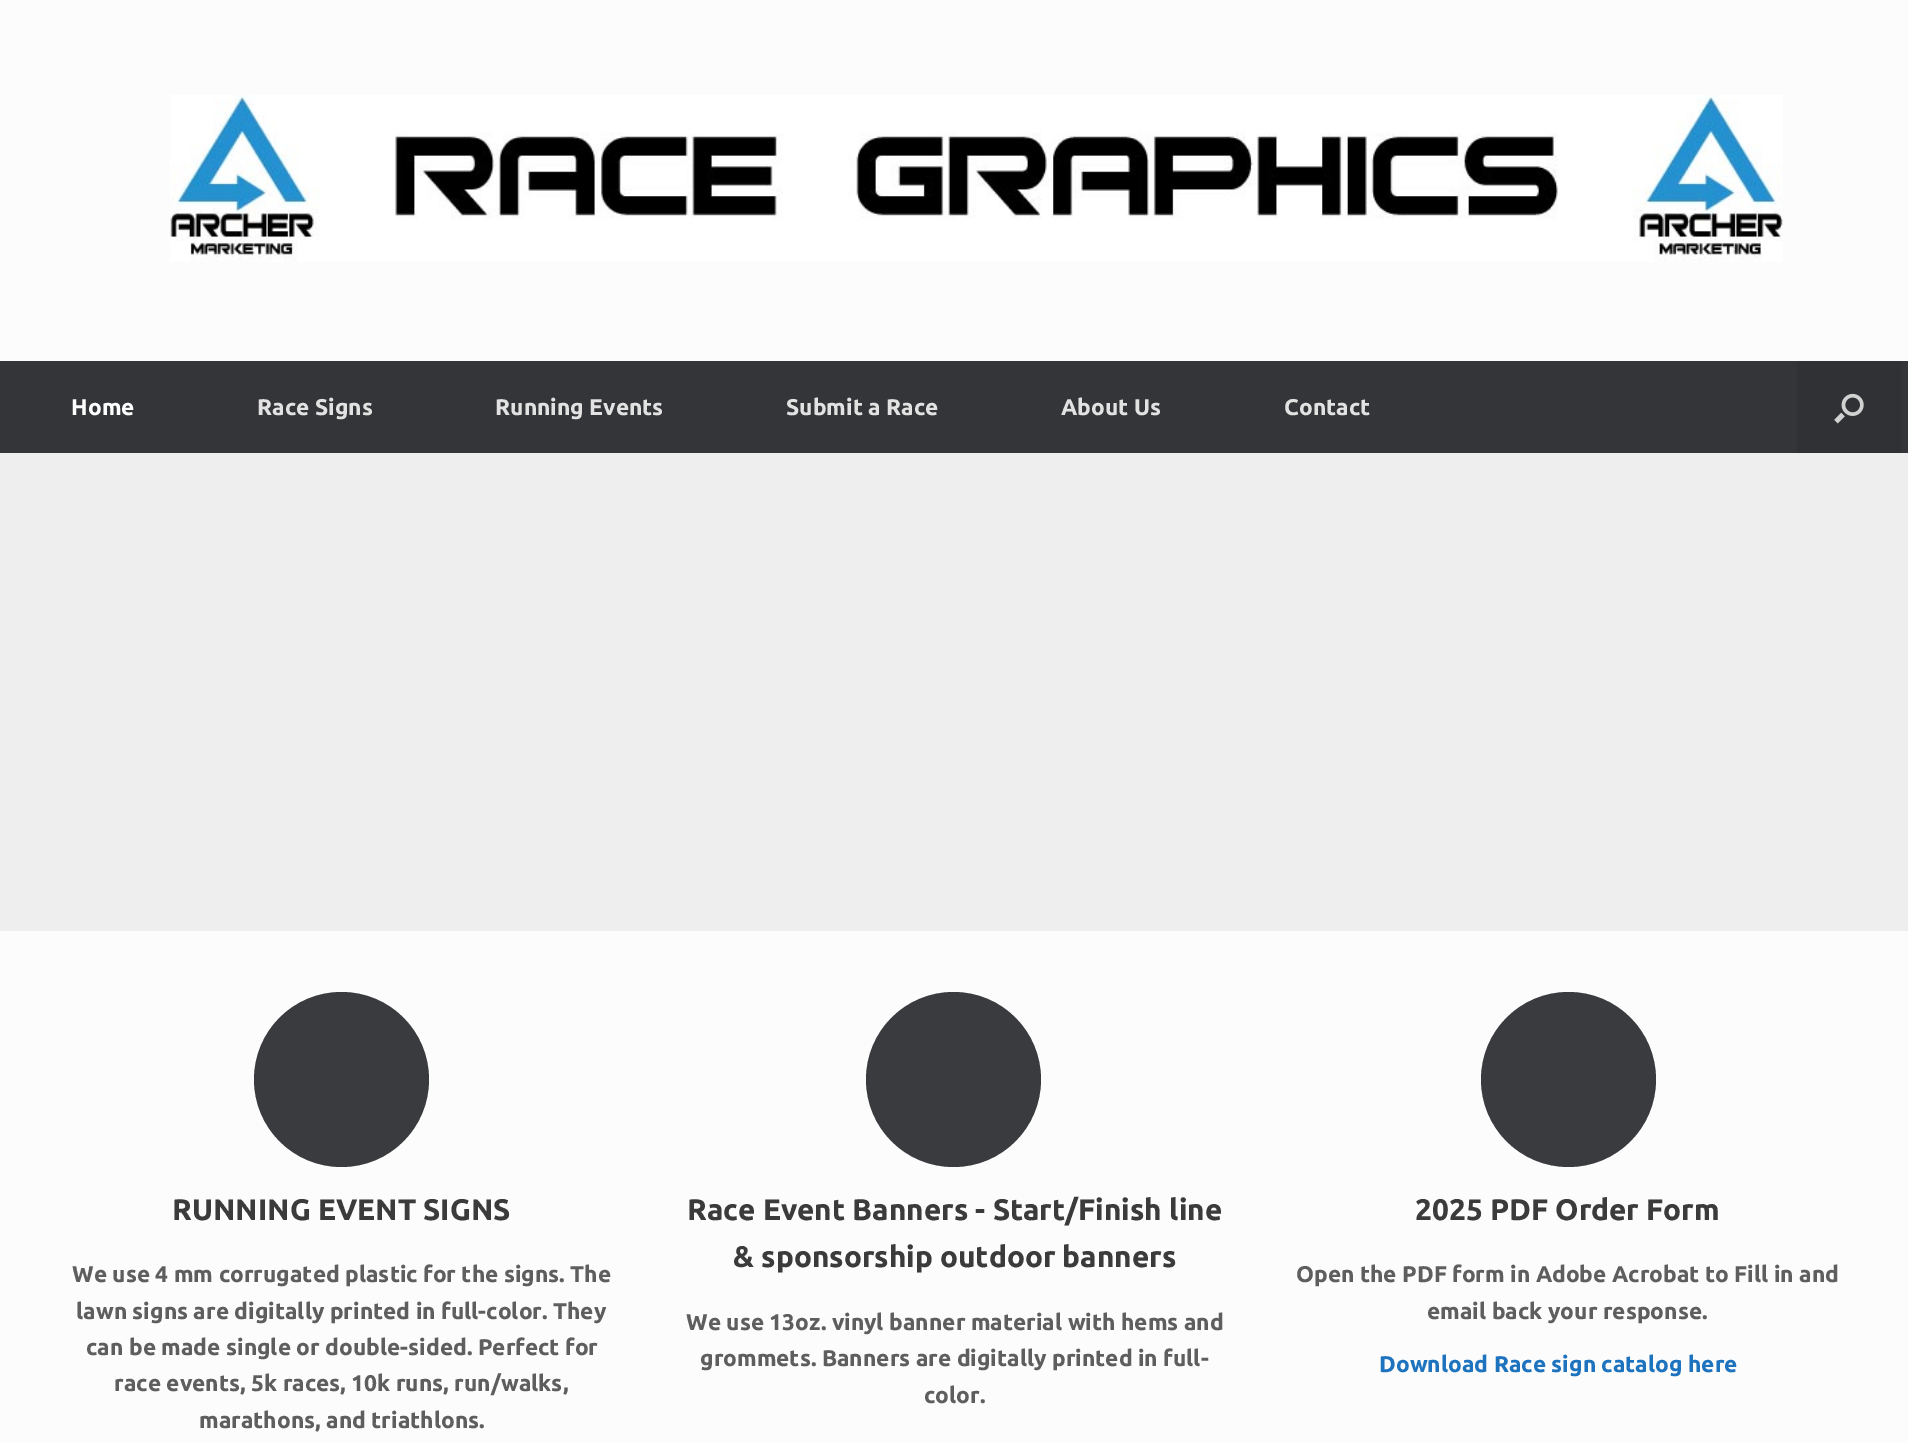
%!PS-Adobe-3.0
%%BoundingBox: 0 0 1908 1442
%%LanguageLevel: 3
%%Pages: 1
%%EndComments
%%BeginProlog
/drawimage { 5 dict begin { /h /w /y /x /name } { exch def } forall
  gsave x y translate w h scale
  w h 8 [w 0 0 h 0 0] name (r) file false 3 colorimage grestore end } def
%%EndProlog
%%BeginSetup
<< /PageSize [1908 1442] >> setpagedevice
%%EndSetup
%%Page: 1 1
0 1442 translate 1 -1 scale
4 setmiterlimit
0.988 setgray
0 0 1908 1442 rectfill
(images/1.raw) 170 95 1613 167 drawimage
0.204 0.208 0.22 setrgbcolor
0 361 1908 92 rectfill
0.188 0.192 0.204 setrgbcolor
1797 361 104 92 rectfill
(images/2.raw) 1834 393 30 31 drawimage
0.933 setgray
0 453 1908 478 rectfill
0.227 0.231 0.243 setrgbcolor
newpath 341.5 1079.5 87.5 0 360 arc closepath fill
newpath 953.5 1079.5 87.5 0 360 arc closepath fill
newpath 1568.5 1079.5 87.5 0 360 arc closepath fill
/Ubuntu-Bold [22.75 0 0 -22.75 0 0] selectfont
1 setgray
71 415 moveto (Home) show
0.886 setgray
257 415 moveto (Race Signs) show
495 415 moveto (Running Events) show
786 415 moveto (Submit a Race) show
1061 415 moveto (About Us) show
1284 415 moveto (Contact) show
/Ubuntu-Bold [29.75 0 0 -29.75 0 0] selectfont
0.231 setgray
172 1220 moveto (RUNNING EVENT SIGNS) show
/Ubuntu-Bold [22.75 0 0 -22.75 0 0] selectfont
0.369 setgray
72 1282 moveto (We use 4 mm corrugated plastic for the signs. The) show
76 1319 moveto (lawn signs are digitally printed in full-color. They) show
86 1355 moveto (can be made single or double-sided. Perfect for) show
114 1391 moveto (race events, 5k races, 10k runs, run/walks,) show
199 1428 moveto (marathons, and triathlons.) show
/Ubuntu-Bold [29.75 0 0 -29.75 0 0] selectfont
0.231 setgray
687 1220 moveto (Race Event Banners - Start/Finish line) show
733 1267 moveto (& sponsorship outdoor banners) show
/Ubuntu-Bold [22.75 0 0 -22.75 0 0] selectfont
0.369 setgray
686 1330 moveto (We use 13oz. vinyl banner material with hems and) show
700 1366 moveto (grommets. Banners are digitally printed in full-) show
924 1403 moveto (color.) show
/Ubuntu-Bold [29.75 0 0 -29.75 0 0] selectfont
0.231 setgray
1415 1220 moveto (2025 PDF Order Form) show
/Ubuntu-Bold [22.75 0 0 -22.75 0 0] selectfont
0.369 setgray
1296 1282 moveto (Open the PDF form in Adobe Acrobat to Fill in and) show
1427 1319 moveto (email back your response.) show
0.118 0.451 0.745 setrgbcolor
1379 1372 moveto (Download Race sign catalog here) show
showpage
%%EOF
